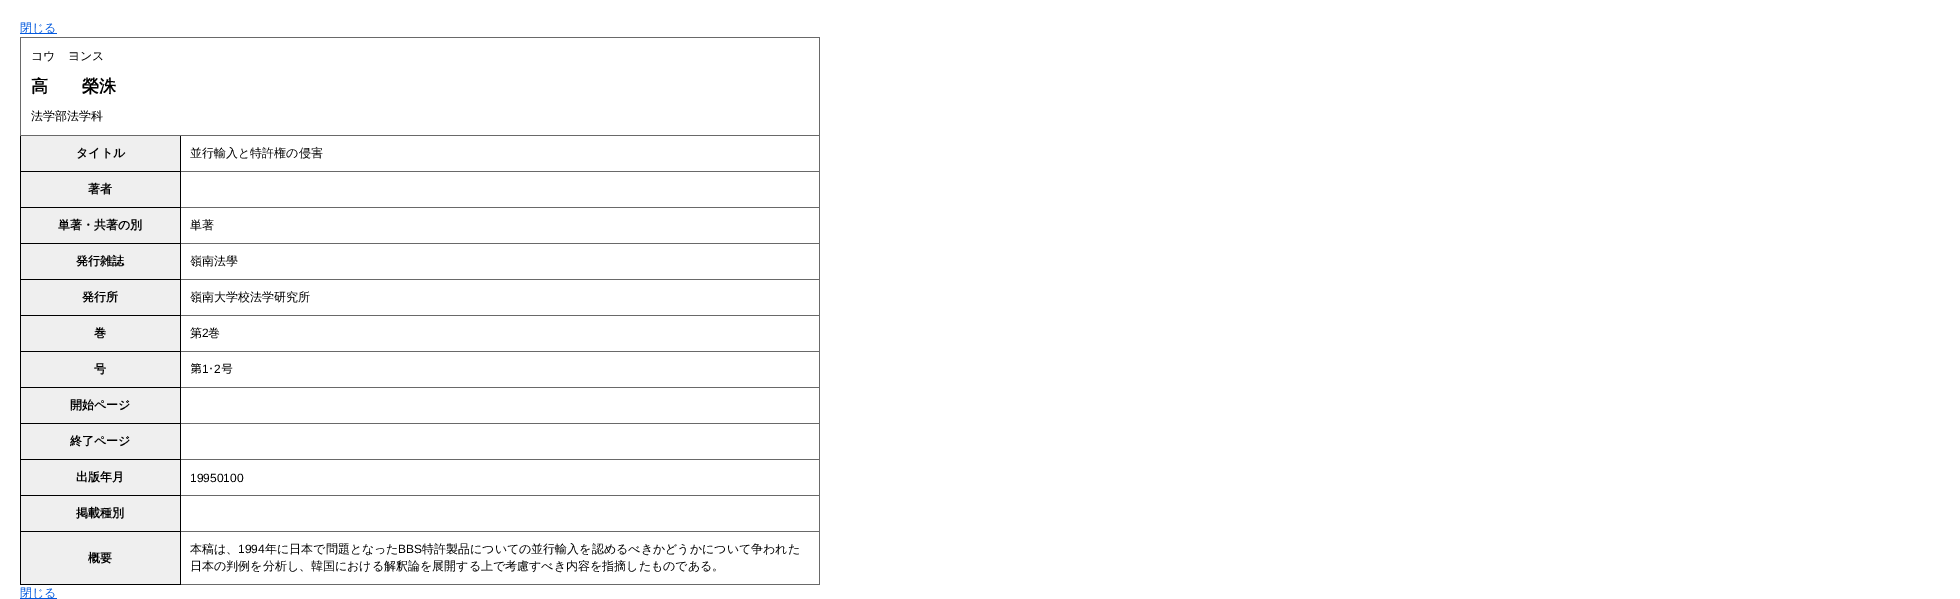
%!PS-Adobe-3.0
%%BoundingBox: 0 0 1960 599
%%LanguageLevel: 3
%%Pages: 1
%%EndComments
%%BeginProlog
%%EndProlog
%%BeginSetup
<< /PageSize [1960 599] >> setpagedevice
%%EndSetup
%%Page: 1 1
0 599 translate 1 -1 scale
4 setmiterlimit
1 setgray
0 0 1960 599 rectfill
0.008 0.349 0.871 setrgbcolor
20 33 37 1 rectfill
0.412 setgray
20 37 800 1 rectfill
819 135 1 450 rectfill
819 37 1 99 rectfill
0 setgray
20 171 161 1 rectfill
20 207 161 1 rectfill
20 243 161 1 rectfill
20 279 161 1 rectfill
20 315 161 1 rectfill
20 351 161 1 rectfill
20 387 161 1 rectfill
20 423 161 1 rectfill
20 459 161 1 rectfill
20 495 161 1 rectfill
20 531 161 1 rectfill
0.412 setgray
180 584 640 1 rectfill
0 setgray
180 531 1 54 rectfill
0.412 setgray
180 531 640 1 rectfill
0 setgray
180 495 1 37 rectfill
0.412 setgray
180 495 640 1 rectfill
0 setgray
180 459 1 37 rectfill
0.412 setgray
180 459 640 1 rectfill
0 setgray
180 423 1 37 rectfill
0.412 setgray
180 423 640 1 rectfill
0 setgray
180 387 1 37 rectfill
0.412 setgray
180 387 640 1 rectfill
0 setgray
180 351 1 37 rectfill
0.412 setgray
180 351 640 1 rectfill
0 setgray
180 315 1 37 rectfill
0.412 setgray
180 315 640 1 rectfill
0 setgray
180 279 1 37 rectfill
0.412 setgray
180 279 640 1 rectfill
0 setgray
180 243 1 37 rectfill
0.412 setgray
180 243 640 1 rectfill
0 setgray
180 207 1 37 rectfill
0.412 setgray
180 207 640 1 rectfill
0 setgray
180 171 1 37 rectfill
0.412 setgray
180 171 640 1 rectfill
0 setgray
180 135 1 37 rectfill
20 584 161 1 rectfill
20 531 1 54 rectfill
20 495 1 37 rectfill
20 459 1 37 rectfill
20 423 1 37 rectfill
20 387 1 37 rectfill
20 351 1 37 rectfill
20 315 1 37 rectfill
20 279 1 37 rectfill
20 243 1 37 rectfill
20 207 1 37 rectfill
20 135 1 73 rectfill
0.412 setgray
20 135 800 1 rectfill
20 37 1 99 rectfill
0.937 setgray
21 136 159 35 rectfill
21 172 159 35 rectfill
21 208 159 35 rectfill
21 244 159 35 rectfill
21 280 159 35 rectfill
21 316 159 35 rectfill
21 352 159 35 rectfill
21 388 159 35 rectfill
21 424 159 35 rectfill
21 460 159 35 rectfill
21 496 159 35 rectfill
21 532 159 52 rectfill
0.008 0.349 0.871 setrgbcolor
20 598 37 1 rectfill
/WenQuanYiZenHei-Medium [12 0 0 -12 0 0] selectfont
20 32 moveto (閉じる) show
0 setgray
31 60 moveto (コウ　ヨンス) show
/WenQuanYiZenHei-Bold [17 0 0 -17 0 0] selectfont
31 92 moveto (高　　榮洙) show
/WenQuanYiZenHei-Medium [12 0 0 -12 0 0] selectfont
31 120 moveto (法学部法学科) show
/WenQuanYiZenHei-Bold [12 0 0 -12 0 0] selectfont
76 157 moveto (タイトル) show
/WenQuanYiZenHei-Medium [12 0 0 -12 0 0] selectfont
190 157 moveto (並行輸入と特許権の侵害) show
/WenQuanYiZenHei-Bold [12 0 0 -12 0 0] selectfont
88 193 moveto (著者) show
58 229 moveto (単著・共著の別) show
/WenQuanYiZenHei-Medium [12 0 0 -12 0 0] selectfont
190 229 moveto (単著) show
/WenQuanYiZenHei-Bold [12 0 0 -12 0 0] selectfont
76 265 moveto (発行雑誌) show
/WenQuanYiZenHei-Medium [12 0 0 -12 0 0] selectfont
190 265 moveto (嶺南法學) show
/WenQuanYiZenHei-Bold [12 0 0 -12 0 0] selectfont
82 301 moveto (発行所) show
/WenQuanYiZenHei-Medium [12 0 0 -12 0 0] selectfont
190 301 moveto (嶺南大学校法学研究所) show
/WenQuanYiZenHei-Bold [12 0 0 -12 0 0] selectfont
94 337 moveto (巻) show
/WenQuanYiZenHei-Medium [12 0 0 -12 0 0] selectfont
190 337 moveto (第) show
/LiberationSans-Regular [12 0 0 -12 0 0] selectfont
202 337 moveto (2) show
/WenQuanYiZenHei-Medium [12 0 0 -12 0 0] selectfont
208 337 moveto (巻) show
/WenQuanYiZenHei-Bold [12 0 0 -12 0 0] selectfont
94 373 moveto (号) show
/IPAGothic-Regular [12 0 0 -12 0 0] selectfont
190 373 moveto (第) show
/LiberationSans-Regular [12 0 0 -12 0 0] selectfont
202 373 moveto (1) show
/IPAGothic-Regular [12 0 0 -12 0 0] selectfont
208 373 moveto (･) show
/LiberationSans-Regular [12 0 0 -12 0 0] selectfont
214 373 moveto (2) show
/IPAGothic-Regular [12 0 0 -12 0 0] selectfont
221 373 moveto (号) show
/WenQuanYiZenHei-Bold [12 0 0 -12 0 0] selectfont
70 409 moveto (開始ページ) show
70 445 moveto (終了ページ) show
76 481 moveto (出版年月) show
/LiberationSans-Regular [12 0 0 -12 0 0] selectfont
190 482 moveto (19950100) show
/WenQuanYiZenHei-Bold [12 0 0 -12 0 0] selectfont
76 517 moveto (掲載種別) show
88 562 moveto (概要) show
/WenQuanYiZenHei-Medium [12 0 0 -12 0 0] selectfont
190 553 moveto (本稿は、) show
/LiberationSans-Regular [12 0 0 -12 0 0] selectfont
238 553 moveto (1994) show
/WenQuanYiZenHei-Medium [12 0 0 -12 0 0] selectfont
265 553 moveto (年に日本で問題となった) show
/LiberationSans-Regular [12 0 0 -12 0 0] selectfont
398 553 moveto (BBS) show
/WenQuanYiZenHei-Medium [12 0 0 -12 0 0] selectfont
422 553 moveto (特許製品についての並行輸入を認めるべきかどうかについて争われた) show
190 570 moveto (日本の判例を分析し、韓国における解釈論を展開する上で考慮すべき内容を指摘したものである。) show
0.008 0.349 0.871 setrgbcolor
20 597 moveto (閉じる) show
showpage
%%EOF
